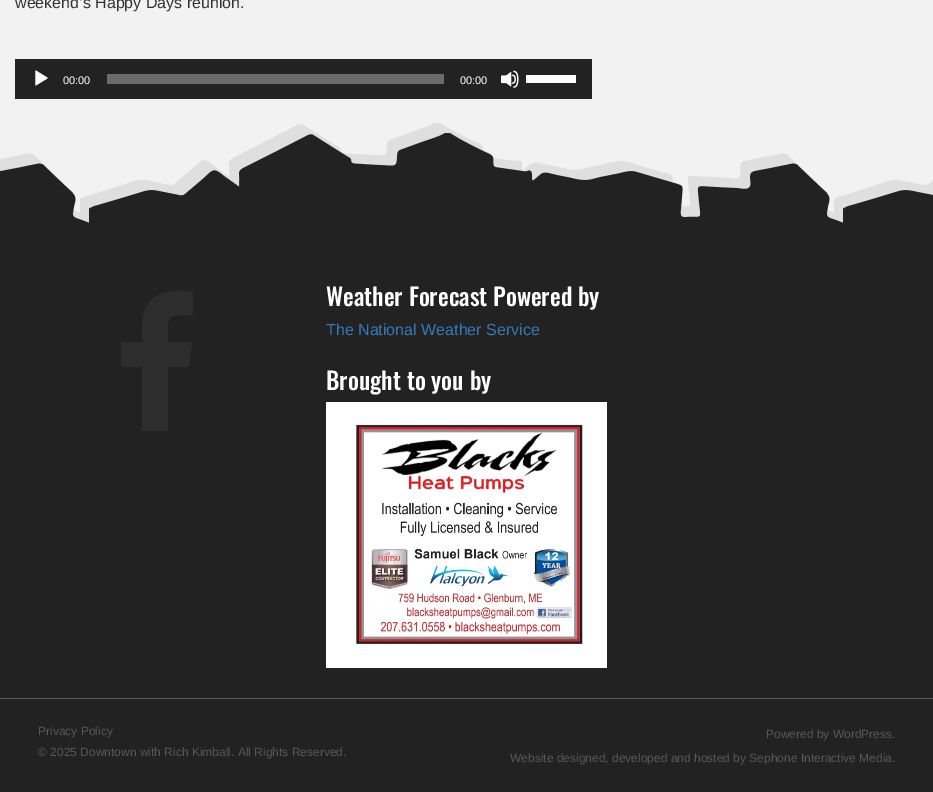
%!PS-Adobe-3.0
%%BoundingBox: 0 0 933 792
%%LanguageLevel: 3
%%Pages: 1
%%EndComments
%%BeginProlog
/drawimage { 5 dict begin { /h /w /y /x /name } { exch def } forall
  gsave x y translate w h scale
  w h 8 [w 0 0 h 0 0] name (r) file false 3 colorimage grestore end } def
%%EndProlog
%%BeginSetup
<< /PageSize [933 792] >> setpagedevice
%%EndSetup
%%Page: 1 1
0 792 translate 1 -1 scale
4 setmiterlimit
0.133 setgray
0 0 933 792 rectfill
0.949 setgray
0 0 933 223 rectfill
(images/1.raw) 0 123 933 129 drawimage
0.133 setgray
15 59 577 40 rectfill
(images/2.raw) 35 70 13 16 drawimage
0.42 setgray
107 74 337 10 rectfill
(images/3.raw) 501 70 18 18 drawimage
1 setgray
526 75 50 8 rectfill
0.176 setgray
newpath 193 292 moveto 193 315 lineto 165 315 168 315 168 342 curveto 192 342 lineto 189 367 lineto 168 367 lineto 168 431 lineto 142 431 lineto 142 367 lineto 121 367 lineto 121 342 lineto 142 342 lineto 142 334 142 325 143 317 curveto 147 291 172 289 193 292 curveto closepath fill
(images/4.raw) 326 402 281 266 drawimage
0.345 setgray
0 698 933 1 rectfill
/LiberationSans-Regular [16 0 0 -16 0 0] selectfont
0.2 setgray
15 8 moveto (weekend’s Happy Days reunion.) show
/LiberationSans-Regular [11 0 0 -11 0 0] selectfont
1 setgray
63 84 moveto (00:00) show
460 84 moveto (00:00) show
/Oswald-Medium [24 0 0 -24 0 0] selectfont
326 306 moveto (Weather Forecast Powered by) show
/LiberationSans-Regular [16 0 0 -16 0 0] selectfont
0.2 0.478 0.718 setrgbcolor
326 335 moveto (The National Weather Service) show
/Oswald-Medium [24 0 0 -24 0 0] selectfont
1 setgray
326 390 moveto (Brought to you by) show
/LiberationSans-Regular [12 0 0 -12 0 0] selectfont
0.345 setgray
38 735 moveto (Privacy Policy) show
38 756 moveto (© 2025 Downtown with Rich Kimball. All Rights Reserved.) show
766 738 moveto (Powered by WordPress.) show
510 762 moveto (Website designed, developed and hosted by Sephone Interactive Media.) show
showpage
%%EOF
